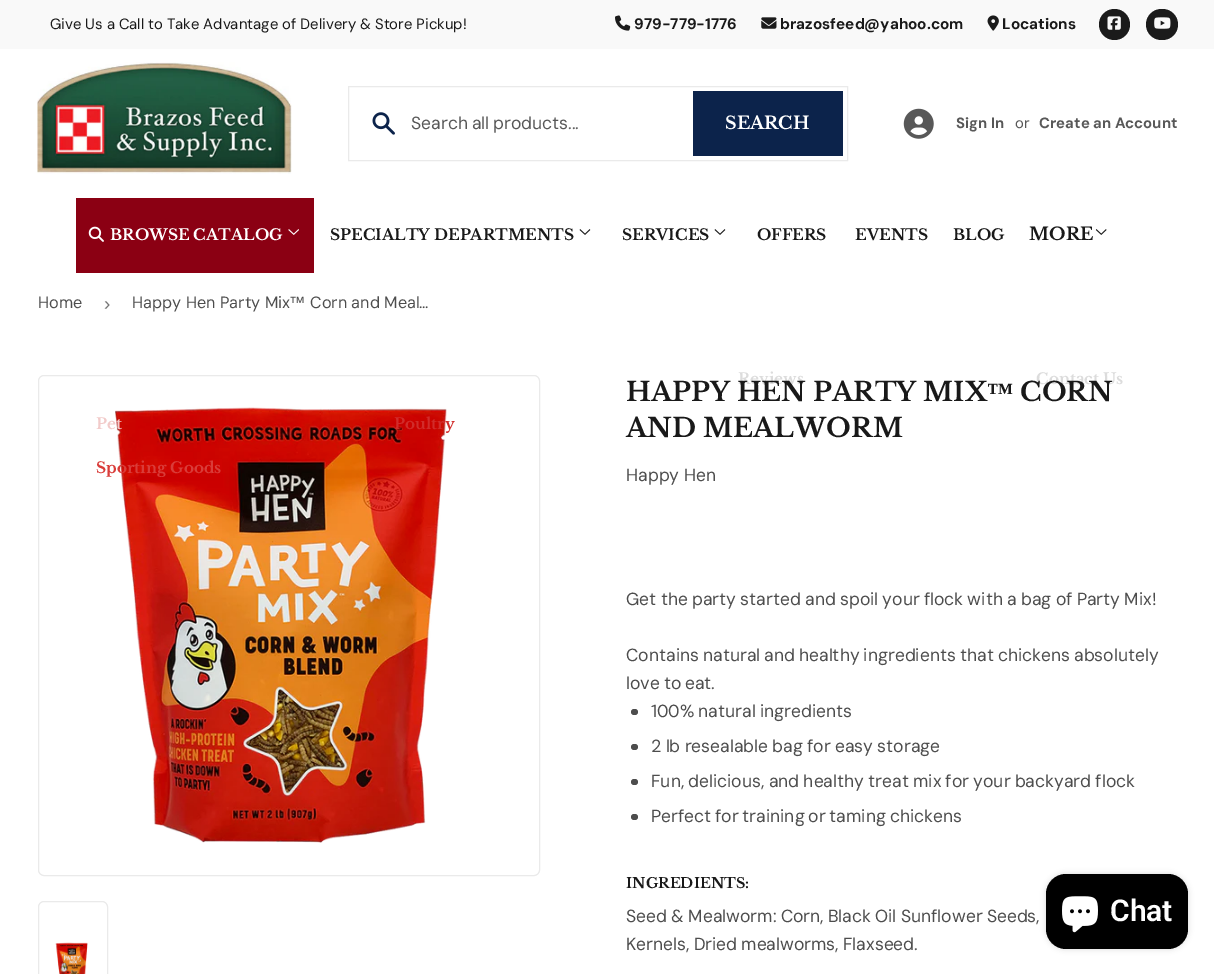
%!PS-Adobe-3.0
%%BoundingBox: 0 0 1214 974
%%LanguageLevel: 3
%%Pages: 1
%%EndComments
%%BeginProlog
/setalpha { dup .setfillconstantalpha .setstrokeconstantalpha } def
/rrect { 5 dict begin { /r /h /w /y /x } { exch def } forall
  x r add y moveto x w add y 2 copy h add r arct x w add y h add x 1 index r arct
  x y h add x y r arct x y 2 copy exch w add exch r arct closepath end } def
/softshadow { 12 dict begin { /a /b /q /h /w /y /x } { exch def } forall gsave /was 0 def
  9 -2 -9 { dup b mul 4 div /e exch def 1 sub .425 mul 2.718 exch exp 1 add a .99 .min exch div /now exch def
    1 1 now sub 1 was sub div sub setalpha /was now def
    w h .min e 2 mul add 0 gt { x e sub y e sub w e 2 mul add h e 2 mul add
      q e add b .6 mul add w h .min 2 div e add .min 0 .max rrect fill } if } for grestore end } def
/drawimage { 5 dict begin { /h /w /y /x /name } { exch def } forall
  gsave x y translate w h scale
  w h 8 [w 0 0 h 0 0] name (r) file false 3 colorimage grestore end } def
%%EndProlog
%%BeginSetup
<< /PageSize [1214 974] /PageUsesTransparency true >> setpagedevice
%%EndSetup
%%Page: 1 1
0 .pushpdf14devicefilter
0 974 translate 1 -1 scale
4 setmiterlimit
1 setgray
0 0 1214 974 rectfill
0.976 setgray
0 0 1214 49 rectfill
(images/1.raw) 615 15 16 16 drawimage
(images/2.raw) 761 17 16 12 drawimage
(images/3.raw) 987 15 12 16 drawimage
0.106 setgray
newpath 1114.5 24.5 15.5 0 360 arc closepath fill
(images/4.raw) 1107 16 14 14 drawimage
1146 9 32 31 15.5 rrect fill
(images/5.raw) 1154 17 17 12 drawimage
(images/6.raw) 37 62 255 112 drawimage
0.918 setgray
348.5 86.5 499 74 rectstroke
(images/7.raw) 372 112 23 23 drawimage
0.047 0.137 0.294 setrgbcolor
693 91 150 65 rectfill
(images/8.raw) 903 108 31 31 drawimage
0.545 0 0.075 setrgbcolor
76 198 238 75 rectfill
(images/9.raw) 88 226 16 16 drawimage
(images/10.raw) 288 229 11 6 drawimage
(images/11.raw) 1095 229 12 6 drawimage
(images/12.raw) 579 229 12 6 drawimage
(images/12.raw) 714 229 12 6 drawimage
0.918 setgray
38.5 375.5 501 500 5.5 rrect stroke
(images/13.raw) 115 407 332 436 drawimage
38.5 901.5 69 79 5.5 rrect stroke
(images/14.raw) 55 942 33 32 drawimage
0.302 setgray
631 709 7 6 3 rrect fill
631 744 7 6 3 rrect fill
631 779 7 6 3 rrect fill
631 814 7 6 3 rrect fill
0 setgray
1046 874 142 75 20 3 0.15 softshadow
1046 874 142 75 20 rrect fill
(images/15.raw) 1062 896 36 37 drawimage
/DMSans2-Regular [14.9 0 0 -14.9 0 0] selectfont
0.098 setgray
50 29 moveto (Give Us a Call to Take Advantage of Delivery & Store Pickup!) show
/DMSans-Bold [15.25 0 0 -15.25 0 0] selectfont
634 29 moveto (979-779-1776) show
780 29 moveto (brazosfeed@yahoo.com) show
1002 29 moveto (Locations) show
/DMSans-Regular [17.5 0 0 -17.5 0 0] selectfont
0.345 setgray
411 129 moveto -1 0 32 (Search all products...) widthshow
/LibreBaskerville-Bold [17.5 0 0 -17.5 0 0] selectfont
1 setgray
725 129 moveto (SEARCH) show
/DMSans2-Bold [14.9 0 0 -14.9 0 0] selectfont
0.345 setgray
956 128 moveto (Sign In) show
/DMSans2-Regular [14.9 0 0 -14.9 0 0] selectfont
1015 128 moveto (or) show
/DMSans2-Bold [14.9 0 0 -14.9 0 0] selectfont
1039 128 moveto (Create an Account) show
/LibreBaskerville-Bold [15.25 0 0 -15.25 0 0] selectfont
1 setgray
110 240 moveto (BROWSE CATALOG) show
0.949 0.796 0.792 setrgbcolor
96 429 moveto (Pet) show
0.82 0.173 0.165 setrgbcolor
394 429 moveto (Poultry) show
0.851 0.235 0.224 setrgbcolor
96 473 moveto (Sporting Goods) show
/LibreBaskerville-Bold [17.5 0 0 -17.5 0 0] selectfont
0.098 setgray
1029 240 moveto (MORE) show
/LibreBaskerville-Bold [15.25 0 0 -15.25 0 0] selectfont
0.863 setgray
738 384 moveto (Reviews) show
1036 384 moveto (Contact Us) show
0.098 setgray
330 240 moveto (SPECIALTY DEPARTMENTS) show
622 240 moveto (SERVICES) show
757 240 moveto (OFFERS) show
855 240 moveto (EVENTS) show
953 240 moveto (BLOG) show
/DMSans-Regular [16.25 0 0 -16.25 0 0] selectfont
0.302 setgray
38 308 moveto (Home) show
/LiberationSans-Regular [19 0 0 -19 0 0] selectfont
0.463 setgray
104 310 moveto (›) show
/DMSans-Regular [16.25 0 0 -16.25 0 0] selectfont
0.302 setgray
132 308 moveto (Happy Hen Party Mix) show
/LiberationSans-Regular [16.25 0 0 -16.25 0 0] selectfont
289 308 moveto (™) show
/DMSans-Regular [16.25 0 0 -16.25 0 0] selectfont
310 308 moveto (Corn and Meal…) show
/LibreBaskerville-Bold [26.25 0 0 -26.25 0 0] selectfont
0.098 setgray
626 401 moveto (HAPPY HEN PARTY MIX) show
/LiberationSerif-Bold [26.25 0 0 -26.25 0 0] selectfont
987 401 moveto (™) show
/LibreBaskerville-Bold [26.25 0 0 -26.25 0 0] selectfont
1020 401 moveto (CORN) show
626 437 moveto (AND MEALWORM) show
/DMSans-Regular [17.5 0 0 -17.5 0 0] selectfont
0.302 setgray
626 481 moveto (Happy Hen) show
626 605 moveto -0.5 0 32 (Get the party started and spoil your flock with a bag of Party Mix!) widthshow
626 661 moveto -0.75 0 32 (Contains natural and healthy ingredients that chickens absolutely) widthshow
626 689 moveto -1 0 32 (love to eat.) widthshow
651 717 moveto -0.75 0 32 (100% natural ingredients) widthshow
651 752 moveto -0.5 0 32 (2 lb resealable bag for easy storage) widthshow
651 787 moveto -0.5 0 32 (Fun, delicious, and healthy treat mix for your backyard flock) widthshow
651 822 moveto -1 0 32 (Perfect for training or taming chickens) widthshow
/LibreBaskerville-Bold [14.25 0 0 -14.25 0 0] selectfont
0.098 setgray
626 888 moveto (INGREDIENTS:) show
/DMSans-Regular [17.5 0 0 -17.5 0 0] selectfont
0.302 setgray
626 922 moveto -0.5 0 32 (Seed & Mealworm: Corn, Black Oil Sunflower Seeds,) widthshow
626 950 moveto -0.5 0 32 (Kernels, Dried mealworms, Flaxseed.) widthshow
/Roboto-SemiBold [30 0 0 -30 0 0] selectfont
1 setgray
1110 921 moveto (Chat) show
.poppdf14devicefilter showpage
%%EOF
